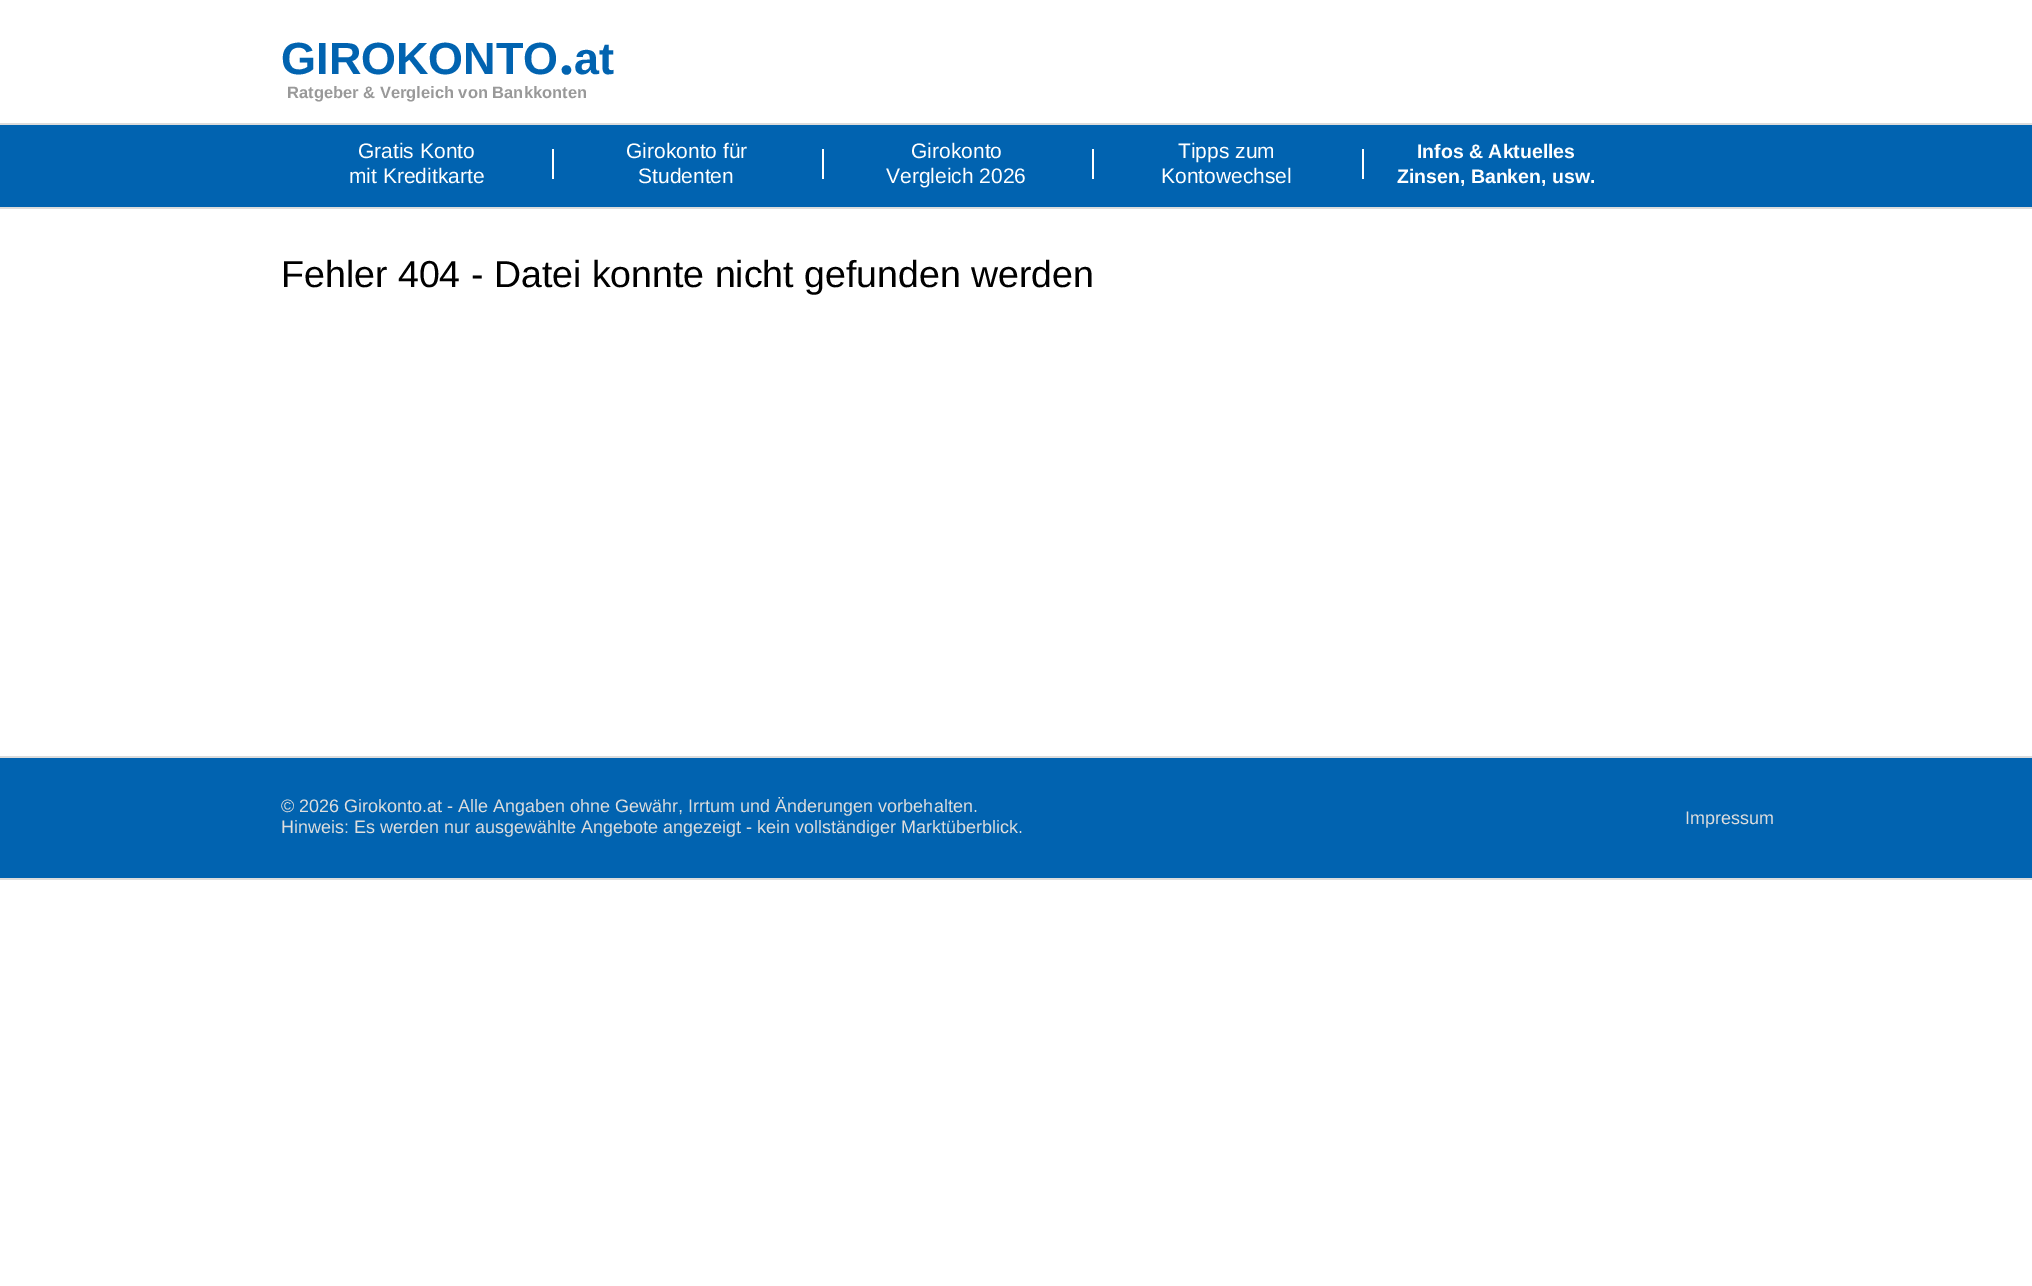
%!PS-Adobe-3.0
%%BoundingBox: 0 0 2032 1286
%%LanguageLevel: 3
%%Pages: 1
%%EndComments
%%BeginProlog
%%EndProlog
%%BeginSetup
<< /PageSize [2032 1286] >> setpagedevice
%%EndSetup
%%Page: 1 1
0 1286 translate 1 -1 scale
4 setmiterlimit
1 setgray
0 0 2032 1286 rectfill
0.004 0.388 0.69 setrgbcolor
0 125 2032 82 rectfill
0.863 setgray
0 123 2032 2 rectfill
0 207 2032 2 rectfill
1 setgray
552 149 2 30 rectfill
822 149 2 30 rectfill
1092 149 2 30 rectfill
1362 149 2 30 rectfill
0.004 0.388 0.69 setrgbcolor
0 758 2032 120 rectfill
0.863 setgray
0 756 2032 2 rectfill
0 878 2032 2 rectfill
/LiberationSans-Bold [45 0 0 -45 0 0] selectfont
0.004 0.388 0.69 setrgbcolor
281 74 moveto (GIROKONTO) show
/LiberationSerif-Bold [60 0 0 -60 0 0] selectfont
559 74 moveto (.) show
/LiberationSans-Bold [45 0 0 -45 0 0] selectfont
574 74 moveto (at) show
/LiberationSans-Bold [16.5 0 0 -16.5 0 0] selectfont
0.6 setgray
287 98 moveto (Ratgeber & Vergleich von Bankkonten) show
/LiberationSans-Regular [21 0 0 -21 0 0] selectfont
1 setgray
358 158 moveto (Gratis Konto) show
349 183 moveto (mit Kreditkarte) show
626 158 moveto (Girokonto für) show
638 183 moveto (Studenten) show
911 158 moveto (Girokonto) show
886 183 moveto (Vergleich 2026) show
1178 158 moveto (Tipps zum) show
1161 183 moveto (Kontowechsel) show
/LiberationSans-Bold [19.5 0 0 -19.5 0 0] selectfont
1417 158 moveto (Infos & Aktuelles) show
1397 183 moveto (Zinsen, Banken, usw.) show
/LiberationSans-Regular [37.5 0 0 -37.5 0 0] selectfont
0 setgray
281 287 moveto (Fehler 404 - Datei konnte nicht gefunden werden) show
/LiberationSans-Regular [18 0 0 -18 0 0] selectfont
0.867 setgray
281 812 moveto (© 2026 Girokonto.at - Alle Angaben ohne Gewähr, Irrtum und Änderungen vorbehalten.) show
281 833 moveto (Hinweis: Es werden nur ausgewählte Angebote angezeigt - kein vollständiger Marktüberblick.) show
1685 824 moveto (Impressum) show
showpage
%%EOF
